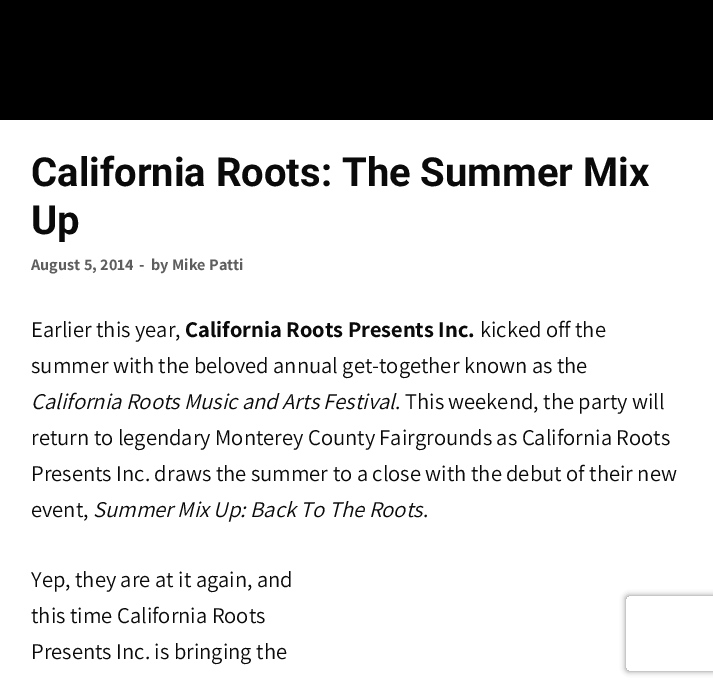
%!PS-Adobe-3.0
%%BoundingBox: 0 0 713 688
%%LanguageLevel: 3
%%Pages: 1
%%EndComments
%%BeginProlog
/setalpha { dup .setfillconstantalpha .setstrokeconstantalpha } def
/rrect { 5 dict begin { /r /h /w /y /x } { exch def } forall
  x r add y moveto x w add y 2 copy h add r arct x w add y h add x 1 index r arct
  x y h add x y r arct x y 2 copy exch w add exch r arct closepath end } def
/softshadow { 12 dict begin { /a /b /q /h /w /y /x } { exch def } forall gsave /was 0 def
  9 -2 -9 { dup b mul 4 div /e exch def 1 sub .425 mul 2.718 exch exp 1 add a .99 .min exch div /now exch def
    1 1 now sub 1 was sub div sub setalpha /was now def
    w h .min e 2 mul add 0 gt { x e sub y e sub w e 2 mul add h e 2 mul add
      q e add b .6 mul add w h .min 2 div e add .min 0 .max rrect fill } if } for grestore end } def
%%EndProlog
%%BeginSetup
<< /PageSize [713 688] /PageUsesTransparency true >> setpagedevice
%%EndSetup
%%Page: 1 1
0 .pushpdf14devicefilter
0 688 translate 1 -1 scale
4 setmiterlimit
1 setgray
0 0 713 688 rectfill
0 setgray
0 0 713 120 rectfill
gsave
newpath 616 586 moveto 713 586 lineto 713 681 lineto 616 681 lineto closepath 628.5 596 moveto 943.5 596 lineto 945 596 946 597 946 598.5 curveto 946 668.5 lineto 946 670 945 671 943.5 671 curveto 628.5 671 lineto 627 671 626 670 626 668.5 curveto 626 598.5 lineto 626 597 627 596 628.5 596 curveto closepath eoclip newpath
0.502 setgray
626 596 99 75 2.5 3 1 softshadow
grestore
/Roboto-Bold [40 0 0 -40 0 0] selectfont
0.039 setgray
31 186 moveto (California Roots: The Summer Mix) show
31 234 moveto (Up) show
/Assistant-Bold [16.25 0 0 -16.25 0 0] selectfont
0.369 setgray
31 270 moveto (August 5, 2014) show
139 270 moveto (-) show
151 270 moveto (by Mike Patti) show
/Assistant-Regular [22.5 0 0 -22.5 0 0] selectfont
0.039 setgray
31 337 moveto (Earlier this year,) show
/Assistant-Bold [22.5 0 0 -22.5 0 0] selectfont
185 337 moveto (California Roots Presents Inc.) show
/Assistant-Regular [22.5 0 0 -22.5 0 0] selectfont
480 337 moveto (kicked off the) show
31 373 moveto (summer with the beloved annual get-together known as the) show
/Assistant-Italic [22.5 0 0 -22.5 0 0] selectfont
31 409 moveto (California Roots Music and Arts Festival) show
/Assistant-Regular [22.5 0 0 -22.5 0 0] selectfont
395 409 moveto (. This weekend, the party will) show
31 445 moveto (return to legendary Monterey County Fairgrounds as California Roots) show
31 481 moveto (Presents Inc. draws the summer to a close with the debut of their new) show
31 517 moveto (event,) show
/Assistant-Italic [22.5 0 0 -22.5 0 0] selectfont
93 517 moveto (Summer Mix Up: Back To The Roots) show
/Assistant-Regular [22.5 0 0 -22.5 0 0] selectfont
423 517 moveto (.) show
31 587 moveto (Yep, they are at it again, and) show
31 623 moveto (this time California Roots) show
31 659 moveto (Presents Inc. is bringing the) show
.poppdf14devicefilter showpage
%%EOF
